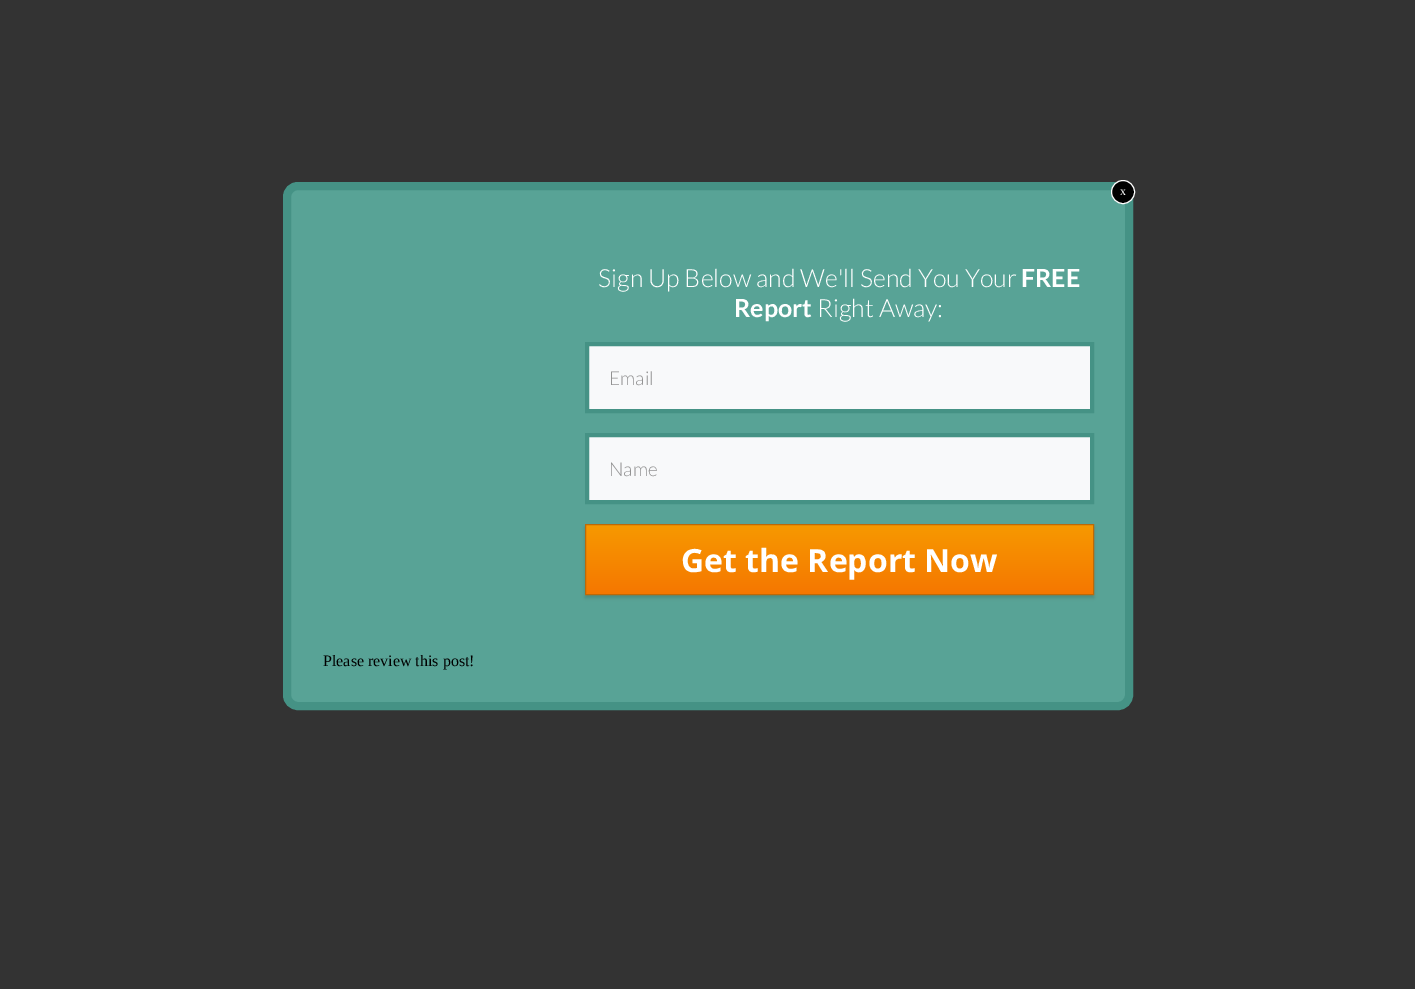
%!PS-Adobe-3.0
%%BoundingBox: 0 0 1415 989
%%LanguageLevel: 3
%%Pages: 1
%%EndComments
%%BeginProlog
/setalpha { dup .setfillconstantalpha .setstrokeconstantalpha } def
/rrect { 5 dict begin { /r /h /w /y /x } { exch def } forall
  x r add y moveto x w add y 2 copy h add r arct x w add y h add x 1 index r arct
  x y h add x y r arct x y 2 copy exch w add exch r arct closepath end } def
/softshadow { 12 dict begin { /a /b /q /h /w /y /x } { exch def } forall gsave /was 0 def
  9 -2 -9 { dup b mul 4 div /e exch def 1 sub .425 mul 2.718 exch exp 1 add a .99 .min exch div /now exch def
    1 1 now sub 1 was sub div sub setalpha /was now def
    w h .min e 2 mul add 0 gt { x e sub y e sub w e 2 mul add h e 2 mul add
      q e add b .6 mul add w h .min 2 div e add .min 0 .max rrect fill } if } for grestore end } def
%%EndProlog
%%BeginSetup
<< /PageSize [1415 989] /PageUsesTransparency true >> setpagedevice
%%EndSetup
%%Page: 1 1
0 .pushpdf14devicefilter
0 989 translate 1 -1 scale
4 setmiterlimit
0.2 setgray
0 0 1415 989 rectfill
0.345 0.639 0.588 setrgbcolor
287 186 842 520 11 rrect gsave fill grestore
0.271 0.573 0.522 setrgbcolor
8 setlinewidth
stroke
0 setgray
newpath 1123 192 11.5 0 360 arc closepath gsave fill grestore
1 setgray
1 setlinewidth
stroke
0.973 0.976 0.98 setrgbcolor
newpath 587 344 moveto 1092 344 lineto 1092 411 lineto 587 411 lineto closepath gsave fill grestore
0.271 0.573 0.522 setrgbcolor
4 setlinewidth
stroke
0.973 0.976 0.98 setrgbcolor
newpath 587 435 moveto 1092 435 lineto 1092 502 lineto 587 502 lineto closepath gsave fill grestore
0.271 0.573 0.522 setrgbcolor
stroke
0 setgray
585 527 509 71 0 1.5 0.13 softshadow
gsave newpath 586 525 moveto 1093 525 lineto 1093 594 lineto 586 594 lineto closepath clip newpath
<< /ShadingType 2 /ColorSpace /DeviceRGB /Coords [840 525 840 594] /Extend [true true] /Function << /FunctionType 2 /Domain [0 1] /C0 [0.969 0.6 0] /C1 [0.961 0.467 0] /N 1 >> >> shfill grestore
0.737 0.412 0.031 setrgbcolor
1 setlinewidth
585.5 524.5 508 70 rectstroke
/LiberationSerif-Regular [12 0 0 -12 0 0] selectfont
1 setgray
1120 195 moveto (x) show
/Lato-Light [25 0 0 -25 0 0] selectfont
598 287 moveto (Sign Up Below and We'll Send You Your) show
/Lato-Bold [25 0 0 -25 0 0] selectfont
1021 287 moveto (FREE) show
734 317 moveto (Report) show
/Lato-Light [25 0 0 -25 0 0] selectfont
817 317 moveto (Right Away:) show
/Lato-Light [19 0 0 -19 0 0] selectfont
0.573 setgray
609 385 moveto (Email) show
609 476 moveto (Name) show
/OpenSans-Bold [32 0 0 -32 0 0] selectfont
1 setgray
681 572 moveto (Get the Report Now) show
/LiberationSerif-Regular [16 0 0 -16 0 0] selectfont
0 setgray
323 666 moveto (Please review this post!) show
.poppdf14devicefilter showpage
%%EOF
